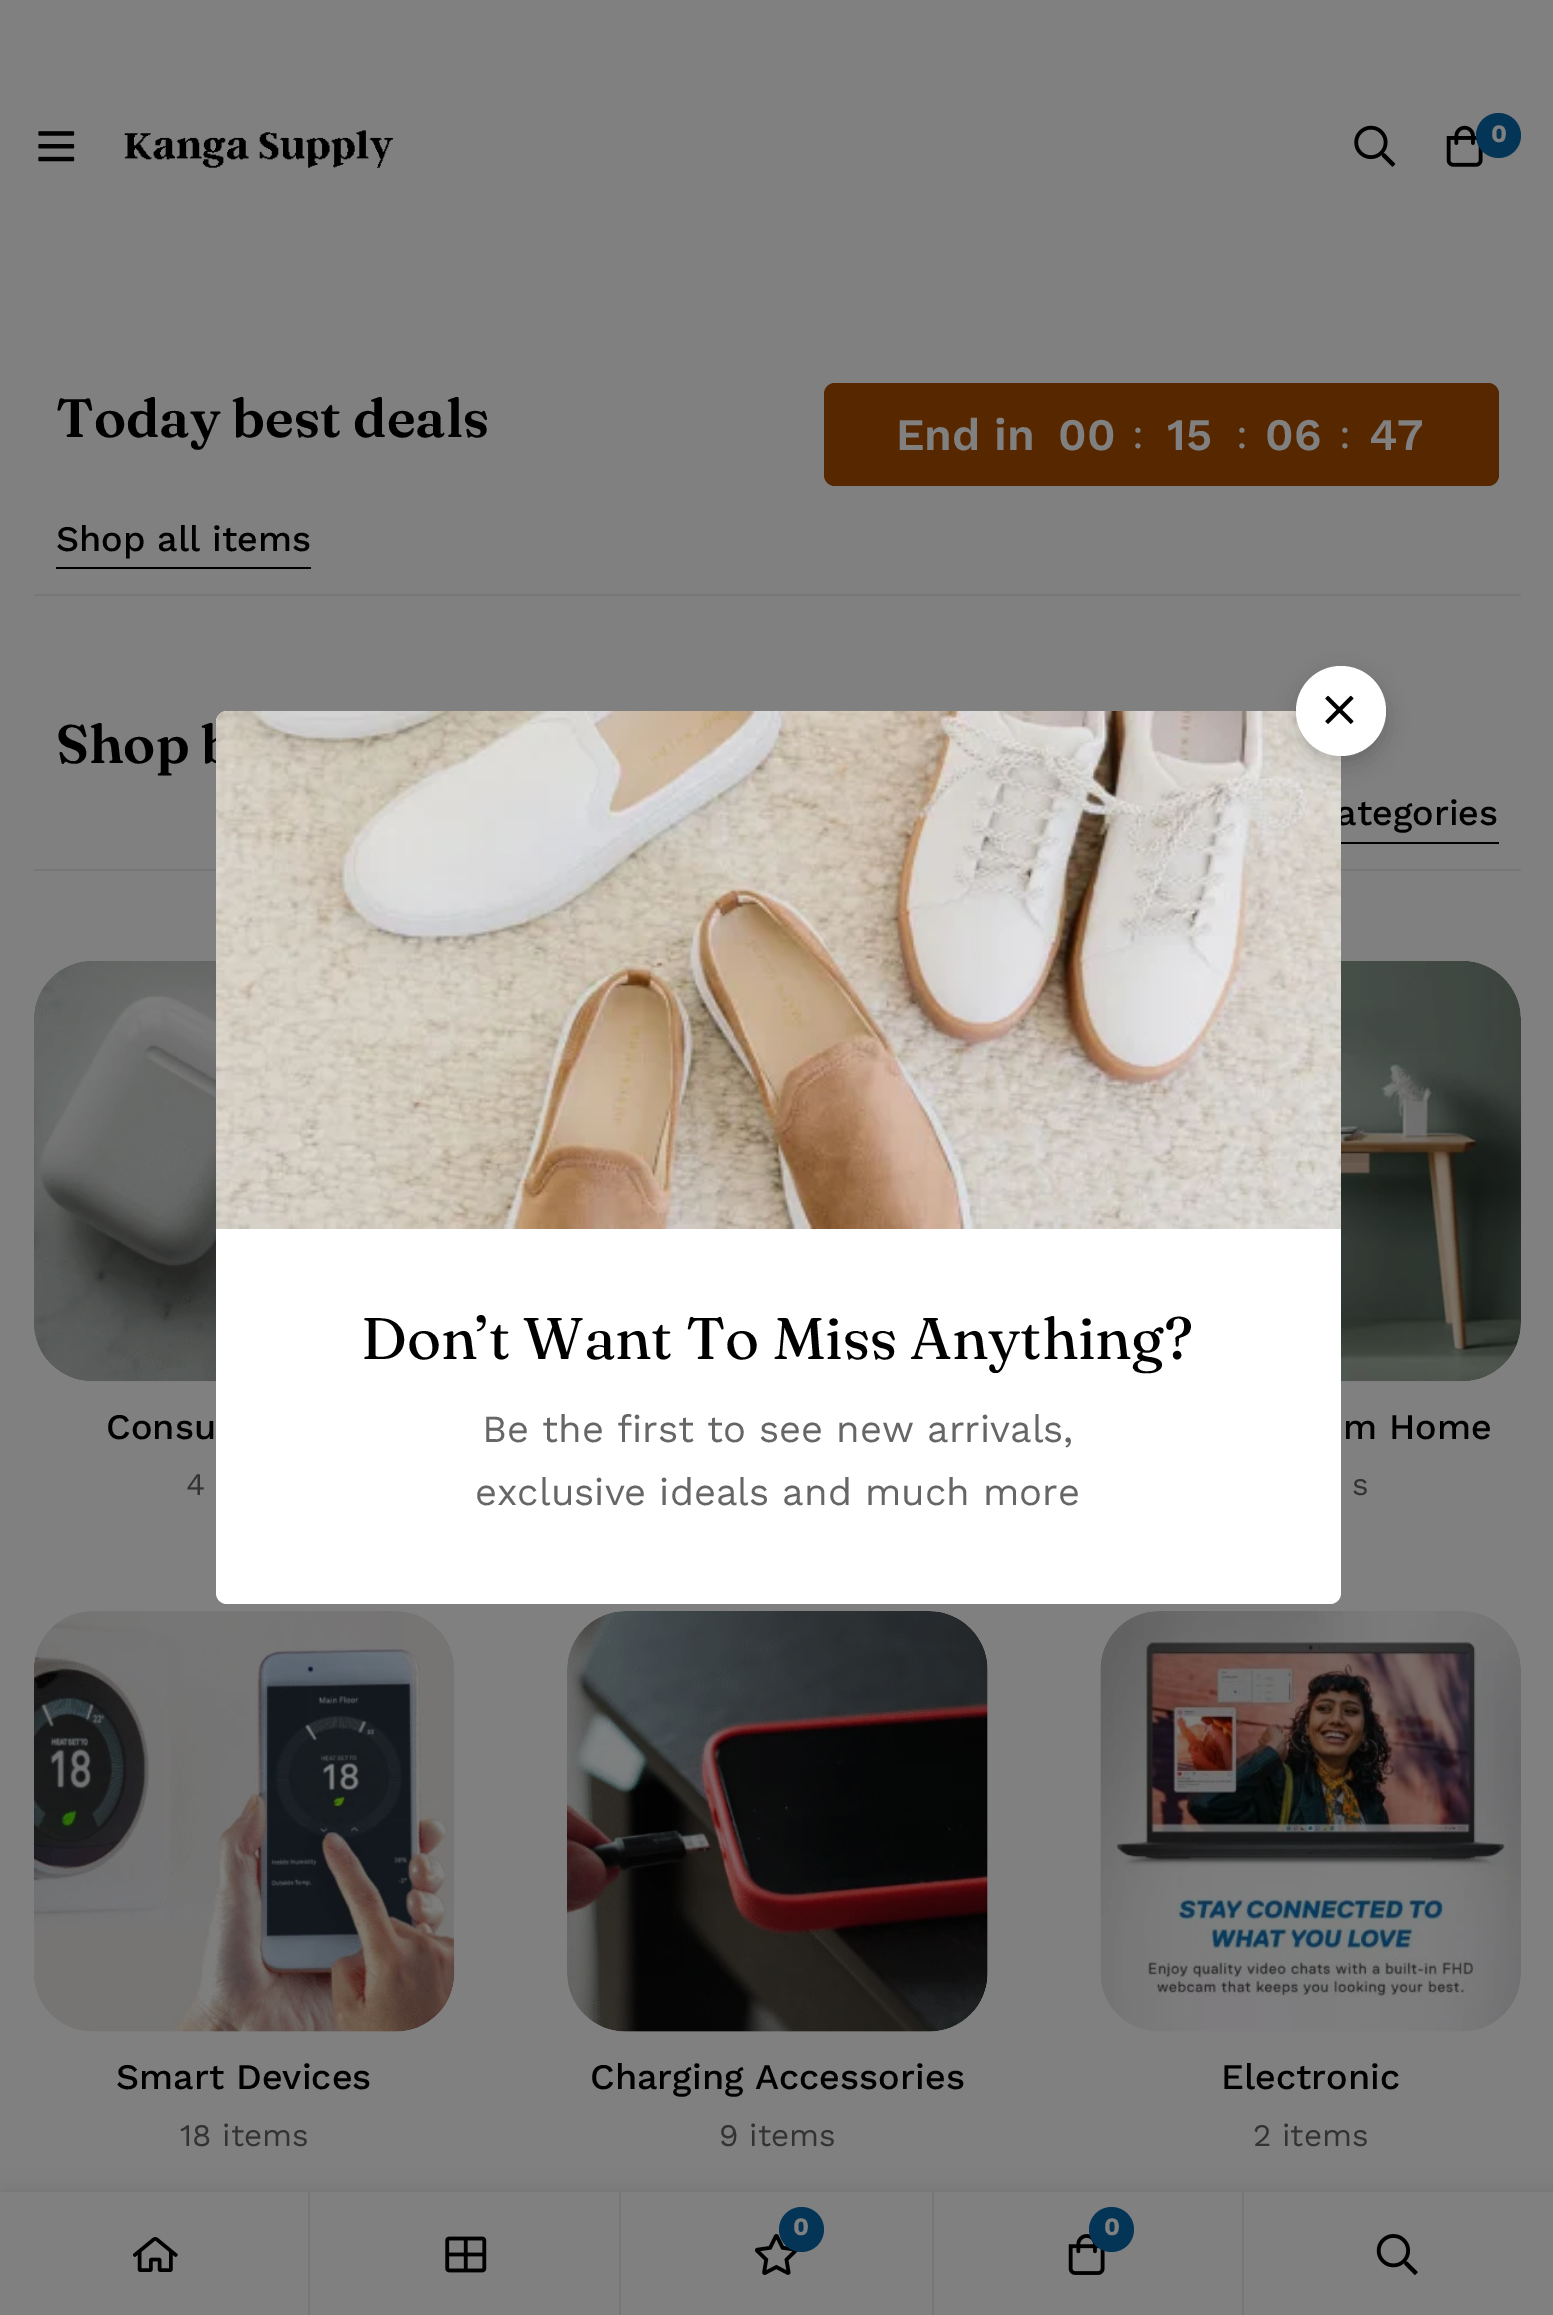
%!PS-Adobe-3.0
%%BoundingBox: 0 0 1553 2315
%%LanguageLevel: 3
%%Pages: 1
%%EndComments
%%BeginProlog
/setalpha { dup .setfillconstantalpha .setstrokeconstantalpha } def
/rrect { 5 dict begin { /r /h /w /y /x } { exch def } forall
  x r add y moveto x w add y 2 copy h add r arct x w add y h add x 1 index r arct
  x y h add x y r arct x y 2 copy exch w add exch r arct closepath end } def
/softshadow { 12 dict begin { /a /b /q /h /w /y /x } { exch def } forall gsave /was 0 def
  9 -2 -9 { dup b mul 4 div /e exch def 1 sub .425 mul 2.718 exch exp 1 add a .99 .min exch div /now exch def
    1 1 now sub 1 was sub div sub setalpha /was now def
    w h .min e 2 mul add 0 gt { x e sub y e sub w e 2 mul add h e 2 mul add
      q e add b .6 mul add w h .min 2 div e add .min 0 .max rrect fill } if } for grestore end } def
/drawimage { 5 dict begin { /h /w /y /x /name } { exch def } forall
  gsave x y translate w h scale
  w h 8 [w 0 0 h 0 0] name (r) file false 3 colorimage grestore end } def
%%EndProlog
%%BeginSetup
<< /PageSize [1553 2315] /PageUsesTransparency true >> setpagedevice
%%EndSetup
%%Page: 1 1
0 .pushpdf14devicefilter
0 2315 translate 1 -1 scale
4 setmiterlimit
0.502 setgray
0 0 1553 2315 rectfill
(images/1.raw) 38 131 37 31 drawimage
(images/2.raw) 124 130 269 38 drawimage
(images/3.raw) 1354 125 42 42 drawimage
(images/4.raw) 1446 125 37 42 drawimage
0.016 0.208 0.337 setrgbcolor
newpath 1498.5 135.5 22.5 0 360 arc closepath fill
0.341 0.157 0 setrgbcolor
824 383 675 103 11 rrect fill
0 setgray
56 567 255 2 rectfill
0.467 setgray
34 594 1487 2 rectfill
0 setgray
1341 842 158 2 rectfill
0.467 setgray
34 869 1487 2 rectfill
(images/5.raw) 34 961 182 421 drawimage
(images/6.raw) 1341 961 180 421 drawimage
(images/7.raw) 34 1611 421 421 drawimage
(images/8.raw) 567 1611 421 421 drawimage
(images/9.raw) 1100 1611 421 421 drawimage
0 setgray
0 2192 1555 123 0 11 0.11 softshadow
0.502 setgray
0 2192 1553 123 rectfill
0.467 setgray
308 2192 2 123 rectfill
(images/12.raw) 133 2237 45 35 drawimage
619 2192 2 123 rectfill
(images/13.raw) 445 2236 42 37 drawimage
932 2192 2 123 rectfill
(images/14.raw) 755 2234 43 41 drawimage
0.016 0.208 0.337 setrgbcolor
newpath 801.5 2229.5 22.5 0 360 arc closepath fill
0.467 setgray
1242 2192 2 123 rectfill
(images/15.raw) 1068 2234 37 41 drawimage
0.016 0.208 0.337 setrgbcolor
newpath 1111.5 2229.5 22.5 0 360 arc closepath fill
(images/16.raw) 1376 2234 42 41 drawimage
/WorkSans-Bold [25 0 0 -25 0 0] selectfont
0.502 setgray
1491 142 moveto (0) show
/Fraunces-SemiBold [54 0 0 -54 0 0] selectfont
0 setgray
56 437 moveto (Today best deals) show
/WorkSans-SemiBold [45 0 0 -45 0 0] selectfont
0.502 setgray
896 450 moveto (End in) show
1058 450 moveto (00) show
/WorkSans-Regular [40 0 0 -40 0 0] selectfont
1132 448 moveto (:) show
/WorkSans-SemiBold [45 0 0 -45 0 0] selectfont
1167 450 moveto (15) show
/WorkSans-Regular [40 0 0 -40 0 0] selectfont
1236 448 moveto (:) show
/WorkSans-SemiBold [45 0 0 -45 0 0] selectfont
1265 450 moveto (06) show
/WorkSans-Regular [40 0 0 -40 0 0] selectfont
1339 448 moveto (:) show
/WorkSans-SemiBold [45 0 0 -45 0 0] selectfont
1369 450 moveto (47) show
/WorkSans-Medium [36 0 0 -36 0 0] selectfont
0 setgray
56 551 moveto (Shop all items) show
/Fraunces-SemiBold [54 0 0 -54 0 0] selectfont
56 763 moveto (Shop b) show
/WorkSans-Medium [36 0 0 -36 0 0] selectfont
1336 825 moveto (ategories) show
106 1439 moveto (Consu) show
/WorkSans-Regular [31.5 0 0 -31.5 0 0] selectfont
0.2 setgray
186 1495 moveto (4) show
/WorkSans-Medium [36 0 0 -36 0 0] selectfont
0 setgray
1343 1439 moveto (m Home) show
/WorkSans-Regular [31.5 0 0 -31.5 0 0] selectfont
0.2 setgray
1352 1495 moveto (s) show
/WorkSans-Medium [36 0 0 -36 0 0] selectfont
0 setgray
116 2089 moveto (Smart Devices) show
/WorkSans-Regular [31.5 0 0 -31.5 0 0] selectfont
0.2 setgray
180 2146 moveto (18 items) show
/WorkSans-Medium [36 0 0 -36 0 0] selectfont
0 setgray
590 2089 moveto (Charging Accessories) show
/WorkSans-Regular [31.5 0 0 -31.5 0 0] selectfont
0.2 setgray
719 2146 moveto (9 items) show
/WorkSans-Medium [36 0 0 -36 0 0] selectfont
0 setgray
1221 2089 moveto (Electronic) show
/WorkSans-Regular [31.5 0 0 -31.5 0 0] selectfont
0.2 setgray
1253 2146 moveto (2 items) show
1 setgray
216 711 1125 893 11 rrect fill
(images/11.raw) 216 711 1125 518 drawimage
0 setgray
1296 675 90 90 45 11 0.17 softshadow
1 setgray
newpath 1341 711 45 0 360 arc closepath fill
(images/10.raw) 1325 695 29 29 drawimage
/Fraunces-Regular [58.5 0 0 -58.5 0 0] selectfont
0 setgray
361 1359 moveto (Don’t Want To Miss Anything?) show
/WorkSans-Regular [38.25 0 0 -38.25 0 0] selectfont
0.4 setgray
482 1442 moveto (Be the first to see new arrivals,) show
475 1505 moveto (exclusive ideals and much more) show
/WorkSans-Bold [25 0 0 -25 0 0] selectfont
0.502 setgray
793 2235 moveto (0) show
1104 2235 moveto (0) show
.poppdf14devicefilter showpage
%%EOF
